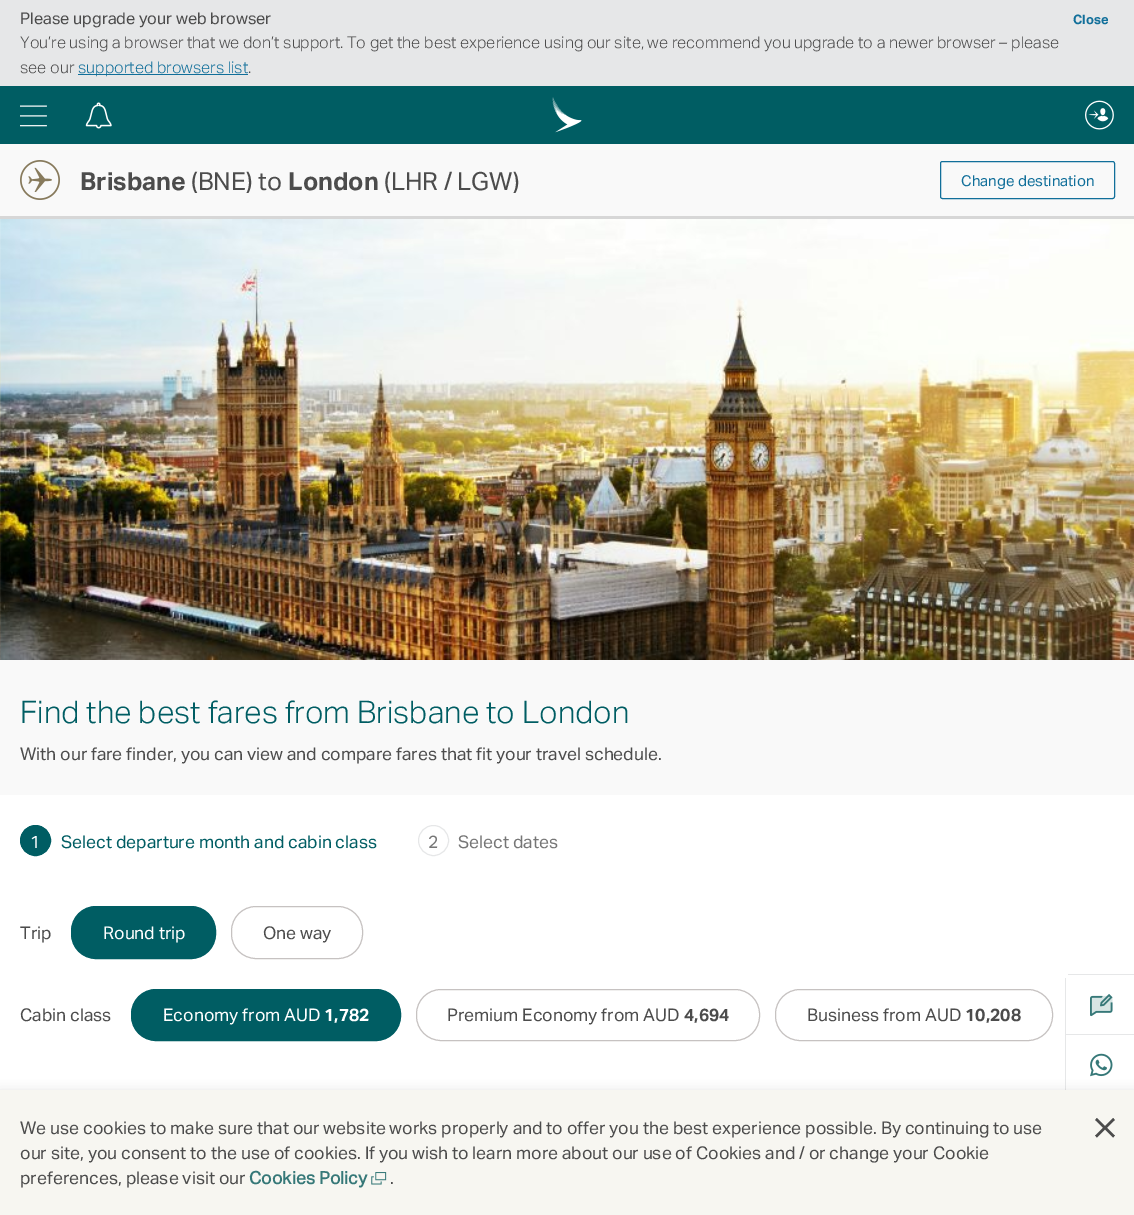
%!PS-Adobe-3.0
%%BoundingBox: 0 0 1134 1215
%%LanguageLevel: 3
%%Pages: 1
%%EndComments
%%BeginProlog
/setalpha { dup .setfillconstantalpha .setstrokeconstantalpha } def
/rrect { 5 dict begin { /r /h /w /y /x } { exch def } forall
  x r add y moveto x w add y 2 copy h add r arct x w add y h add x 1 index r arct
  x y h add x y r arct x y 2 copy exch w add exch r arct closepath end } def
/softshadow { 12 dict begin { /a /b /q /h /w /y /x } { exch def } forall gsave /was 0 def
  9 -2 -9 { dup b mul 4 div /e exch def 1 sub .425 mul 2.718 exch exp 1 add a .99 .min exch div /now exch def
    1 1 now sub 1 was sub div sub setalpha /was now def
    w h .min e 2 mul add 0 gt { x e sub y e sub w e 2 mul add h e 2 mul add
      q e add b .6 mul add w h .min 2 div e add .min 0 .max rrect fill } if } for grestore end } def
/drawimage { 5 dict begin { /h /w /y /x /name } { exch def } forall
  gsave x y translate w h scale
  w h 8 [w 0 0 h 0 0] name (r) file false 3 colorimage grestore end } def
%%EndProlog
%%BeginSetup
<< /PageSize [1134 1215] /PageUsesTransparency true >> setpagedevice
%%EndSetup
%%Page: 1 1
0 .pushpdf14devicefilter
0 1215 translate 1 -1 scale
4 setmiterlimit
1 setgray
0 0 1134 1215 rectfill
0.902 0.906 0.91 setrgbcolor
0 0 1134 86 rectfill
0.067 0.435 0.604 setrgbcolor
78 74 170 1 rectfill
0 0.365 0.388 setrgbcolor
0 86 1134 58 rectfill
(images/1.raw) 20 105 27 22 drawimage
(images/2.raw) 85 102 27 27 drawimage
(images/3.raw) 552 97 30 36 drawimage
(images/4.raw) 1085 100 29 30 drawimage
0.976 setgray
0 144 1134 72 rectfill
0.843 setgray
0 216 1134 3 rectfill
(images/5.raw) 20 160 40 40 drawimage
0.067 0.435 0.604 setrgbcolor
940.5 161.5 174 37 2 rrect stroke
(images/6.raw) 0 219 1134 441 drawimage
0.976 setgray
0 660 1134 135 rectfill
0 0.365 0.388 setrgbcolor
newpath 35.5 840.5 15 0 360 arc closepath gsave fill grestore
stroke
0.902 0.906 0.91 setrgbcolor
newpath 433.5 840.5 15 0 360 arc closepath stroke
0 0.365 0.388 setrgbcolor
71.5 906.5 144 52 24.5 rrect gsave fill grestore
stroke
0.776 0.761 0.757 setrgbcolor
231.5 906.5 131 52 24.5 rrect stroke
0 0.365 0.388 setrgbcolor
131.5 989.5 269 51 24.5 rrect gsave fill grestore
stroke
0.776 0.761 0.757 setrgbcolor
416.5 989.5 343 51 24.5 rrect stroke
775.5 989.5 277 51 24.5 rrect stroke
0.902 0.906 0.91 setrgbcolor
1068 974 66 1 rectfill
1065 1034 69 1 rectfill
1065 978 1 57 rectfill
(images/7.raw) 1090 994 23 23 drawimage
newpath 1066 1035 moveto 1065 1035 lineto 1065 1090 lineto 1065 1093 1067 1095 1070 1095 curveto 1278 1095 lineto 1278 1035 lineto 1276 1035 lineto 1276 1094 lineto 1070 1094 lineto 1068 1094 1066 1092 1066 1090 curveto closepath fill
(images/8.raw) 1090 1053 23 24 drawimage
0.176 setgray
0 1093 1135 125 0 6 0.2 softshadow
0.969 0.965 0.945 setrgbcolor
0 1090 1134 125 rectfill
(images/9.raw) 371 1172 16 13 drawimage
0.298 setgray
2.5 setlinewidth
newpath 1096 1119 moveto 1114 1136.5 lineto 1114 1119 moveto 1096 1136.5 lineto stroke
/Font-Regular [16.25 0 0 -16.25 0 0] selectfont
20 24 moveto (Please upgrade your web browser) show
/Font-Bold [13 0 0 -13 0 0] selectfont
0.067 0.435 0.604 setrgbcolor
1073 24 moveto (Close) show
/Font-Light [16.25 0 0 -16.25 0 0] selectfont
0.298 setgray
20 48 moveto (You’re using a browser that we don’t support. To get the best experience using our site, we recommend you upgrade to a newer browser – please) show
20 73 moveto (see our) show
0.067 0.435 0.604 setrgbcolor
78 73 moveto (supported browsers list) show
0.298 setgray
248 73 moveto (.) show
/Font-Bold [25 0 0 -25 0 0] selectfont
80 190 moveto (Brisbane) show
/Font-Regular [25 0 0 -25 0 0] selectfont
191 190 moveto (\(BNE\) to) show
/Font-Bold [25 0 0 -25 0 0] selectfont
288 190 moveto (London) show
/Font-Regular [25 0 0 -25 0 0] selectfont
384 190 moveto (\(LHR / LGW\)) show
/Font-Regular [15 0 0 -15 0 0] selectfont
0.067 0.435 0.604 setrgbcolor
961 186 moveto (Change destination) show
/Font-Light [31.25 0 0 -31.25 0 0] selectfont
0 0.365 0.388 setrgbcolor
20 723 moveto (Find the best fares from Brisbane to London) show
/Font-Regular [17.5 0 0 -17.5 0 0] selectfont
0.298 setgray
20 760 moveto (With our fare finder, you can view and compare fares that fit your travel schedule.) show
1 setgray
30 848 moveto (1) show
0 0.365 0.388 setrgbcolor
61 848 moveto (Select departure month and cabin class) show
0.463 setgray
428 848 moveto (2) show
458 848 moveto (Select dates) show
0.298 setgray
20 939 moveto (Trip) show
1 setgray
103 939 moveto (Round trip) show
0.298 setgray
263 939 moveto (One way) show
20 1021 moveto (Cabin class) show
1 setgray
163 1021 moveto (Economy from AUD) show
/Font-Bold [17.5 0 0 -17.5 0 0] selectfont
324 1021 moveto (1,782) show
/Font-Regular [17.5 0 0 -17.5 0 0] selectfont
0.298 setgray
447 1021 moveto (Premium Economy from AUD) show
/Font-Bold [17.5 0 0 -17.5 0 0] selectfont
684 1021 moveto (4,694) show
/Font-Regular [17.5 0 0 -17.5 0 0] selectfont
807 1021 moveto (Business from AUD) show
/Font-Bold [17.5 0 0 -17.5 0 0] selectfont
965 1021 moveto (10,208) show
/Font-Regular [17.5 0 0 -17.5 0 0] selectfont
20 1134 moveto (We use cookies to make sure that our website works properly and to offer you the best experience possible. By continuing to use) show
20 1159 moveto (our site, you consent to the use of cookies. If you wish to learn more about our use of Cookies and / or change your Cookie) show
20 1184 moveto (preferences, please visit our) show
/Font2-Bold [17.5 0 0 -17.5 0 0] selectfont
0.212 0.471 0.471 setrgbcolor
249 1184 moveto (Cookies Policy) show
/Font-Regular [17.5 0 0 -17.5 0 0] selectfont
0.298 setgray
390 1184 moveto (.) show
.poppdf14devicefilter showpage
%%EOF
